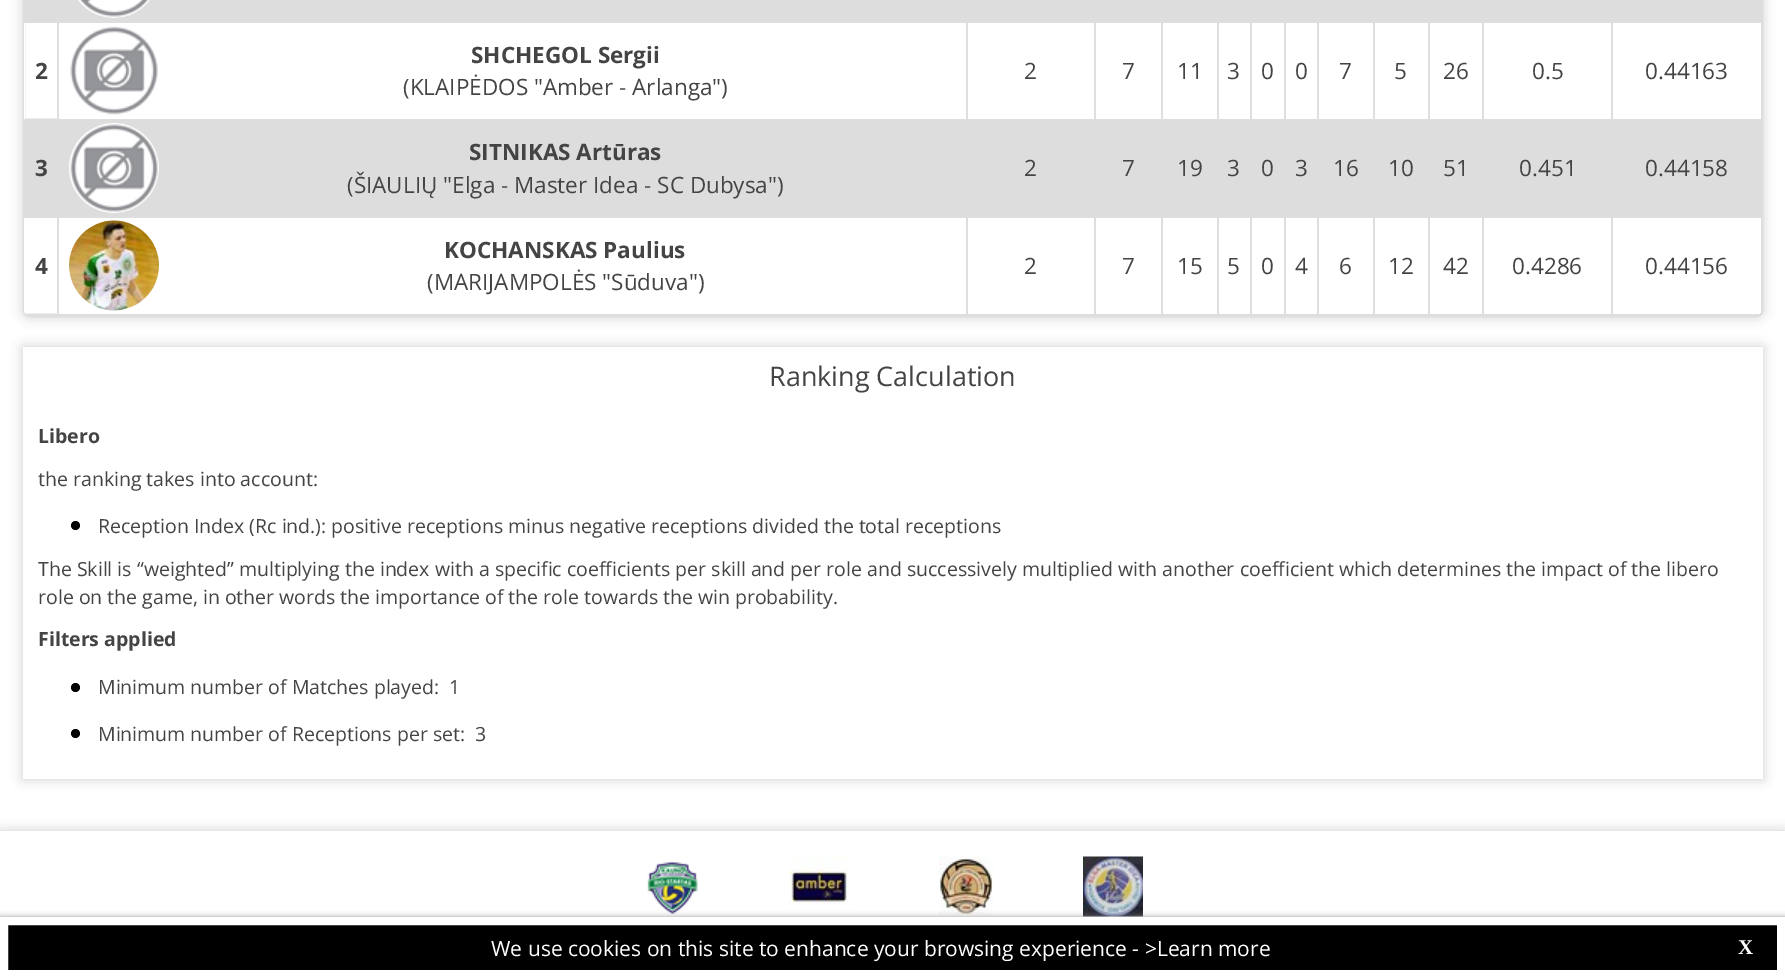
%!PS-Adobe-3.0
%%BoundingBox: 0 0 1785 978
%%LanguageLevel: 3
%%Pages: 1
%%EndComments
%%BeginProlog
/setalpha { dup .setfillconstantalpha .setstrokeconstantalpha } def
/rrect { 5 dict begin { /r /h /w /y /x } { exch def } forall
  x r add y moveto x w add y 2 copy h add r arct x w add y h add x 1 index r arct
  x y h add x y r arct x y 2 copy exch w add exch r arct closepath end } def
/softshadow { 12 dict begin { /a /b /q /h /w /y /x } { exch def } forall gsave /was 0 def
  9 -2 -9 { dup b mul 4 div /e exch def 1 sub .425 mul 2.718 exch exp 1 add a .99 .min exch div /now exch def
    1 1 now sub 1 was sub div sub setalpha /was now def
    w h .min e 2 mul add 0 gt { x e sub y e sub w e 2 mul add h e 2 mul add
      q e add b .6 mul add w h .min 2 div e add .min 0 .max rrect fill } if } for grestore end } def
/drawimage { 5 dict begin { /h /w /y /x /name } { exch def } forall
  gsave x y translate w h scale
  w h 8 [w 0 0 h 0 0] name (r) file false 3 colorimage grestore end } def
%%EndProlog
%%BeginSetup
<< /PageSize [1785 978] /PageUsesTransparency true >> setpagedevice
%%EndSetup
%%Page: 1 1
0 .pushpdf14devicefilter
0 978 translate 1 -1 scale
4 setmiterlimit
1 setgray
0 0 1785 978 rectfill
0.8 setgray
23 -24 1740 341 6 6 1 softshadow
1 setgray
24 -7 1738 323 5 rrect gsave fill grestore
0.871 setgray
2 setlinewidth
stroke
0.867 setgray
25 0 32 23 rectfill
59 0 907 21 rectfill
0.871 setgray
57 21 1704 2 rectfill
57 0 2 23 rectfill
(images/1.raw) 78 0 72 18 drawimage
0.867 setgray
968 0 126 21 rectfill
0.871 setgray
966 0 2 23 rectfill
0.867 setgray
1096 0 65 21 rectfill
0.871 setgray
1094 0 2 23 rectfill
0.867 setgray
1163 0 54 21 rectfill
0.871 setgray
1161 0 2 23 rectfill
0.867 setgray
1219 0 31 21 rectfill
0.871 setgray
1217 0 2 23 rectfill
0.867 setgray
1252 0 32 21 rectfill
0.871 setgray
1250 0 2 23 rectfill
0.867 setgray
1286 0 31 21 rectfill
0.871 setgray
1284 0 2 23 rectfill
0.867 setgray
1319 0 54 21 rectfill
0.871 setgray
1317 0 2 23 rectfill
0.867 setgray
1375 0 53 21 rectfill
0.871 setgray
1373 0 2 23 rectfill
0.867 setgray
1430 0 52 21 rectfill
0.871 setgray
1428 0 2 23 rectfill
0.867 setgray
1484 0 127 21 rectfill
0.871 setgray
1482 0 2 23 rectfill
0.867 setgray
1613 0 148 21 rectfill
0.871 setgray
1611 0 2 23 rectfill
1 setgray
24 23 1 97 rectfill
0.871 setgray
newpath 57 120 moveto 24 120 lineto 25.5 118.5 lineto 57 118.5 lineto closepath fill
57 119 1704 1 rectfill
57 23 2 97 rectfill
(images/2.raw) 70 26 88 89 drawimage
966 23 2 97 rectfill
1094 23 2 97 rectfill
1161 23 2 97 rectfill
1217 23 2 97 rectfill
1250 23 2 97 rectfill
1284 23 2 97 rectfill
1317 23 2 97 rectfill
1373 23 2 97 rectfill
1428 23 2 97 rectfill
1482 23 2 97 rectfill
1611 23 2 97 rectfill
0.867 setgray
25 120 32 98 rectfill
59 120 907 96 rectfill
0.871 setgray
57 216 1704 2 rectfill
57 120 2 98 rectfill
(images/3.raw) 69 123 90 90 drawimage
0.867 setgray
968 120 126 96 rectfill
0.871 setgray
966 120 2 98 rectfill
0.867 setgray
1096 120 65 96 rectfill
0.871 setgray
1094 120 2 98 rectfill
0.867 setgray
1163 120 54 96 rectfill
0.871 setgray
1161 120 2 98 rectfill
0.867 setgray
1219 120 31 96 rectfill
0.871 setgray
1217 120 2 98 rectfill
0.867 setgray
1252 120 32 96 rectfill
0.871 setgray
1250 120 2 98 rectfill
0.867 setgray
1286 120 31 96 rectfill
0.871 setgray
1284 120 2 98 rectfill
0.867 setgray
1319 120 54 96 rectfill
0.871 setgray
1317 120 2 98 rectfill
0.867 setgray
1375 120 53 96 rectfill
0.871 setgray
1373 120 2 98 rectfill
0.867 setgray
1430 120 52 96 rectfill
0.871 setgray
1428 120 2 98 rectfill
0.867 setgray
1484 120 127 96 rectfill
0.871 setgray
1482 120 2 98 rectfill
0.867 setgray
1613 120 148 96 rectfill
0.871 setgray
1611 120 2 98 rectfill
1 setgray
newpath 24 218 moveto 57 218 lineto 57 315 lineto 29 315 lineto 26 315 24 313 24 310 curveto closepath fill
0.871 setgray
newpath 57 315 moveto 57 313.5 lineto 25.5 313.5 lineto 26.5 314.5 27.5 315 29 315 curveto closepath fill
57 314 1554 1 rectfill
57 218 2 97 rectfill
(images/4.raw) 68 220 91 91 drawimage
966 218 2 97 rectfill
1094 218 2 97 rectfill
1161 218 2 97 rectfill
1217 218 2 97 rectfill
1250 218 2 97 rectfill
1284 218 2 97 rectfill
1317 218 2 97 rectfill
1373 218 2 97 rectfill
1428 218 2 97 rectfill
1482 218 2 97 rectfill
gsave
24 -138 1737 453 5 rrect clip newpath
1 setgray
1613 218 148 96 rectfill
0.871 setgray
1611 314 150 1 rectfill
grestore
1611 218 2 97 rectfill
gsave
newpath 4 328 moveto 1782 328 lineto 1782 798 lineto 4 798 lineto closepath 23 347 moveto 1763 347 lineto 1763 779 lineto 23 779 lineto closepath eoclip newpath
0.8 setgray
23 347 1740 432 0 6 1 softshadow
grestore
0.75 setalpha
1 setgray
23 347 1740 432 rectfill
1 setalpha
0 setgray
newpath 75.5 525.5 4.5 0 360 arc closepath fill
newpath 75.5 687.5 4.5 0 360 arc closepath fill
newpath 75.5 733.5 4.5 0 360 arc closepath fill
gsave
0 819 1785 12 rectclip
0.8 setgray
0 831 1785 108 0 6 1 softshadow
grestore
(images/5.raw) 647 861 51 53 drawimage
(images/6.raw) 789 856 60 49 drawimage
(images/7.raw) 939 856 54 61 drawimage
(images/8.raw) 1083 856 60 61 drawimage
0.6 setgray
0 917 1785 60 0 3 1 softshadow
0 setgray
newpath 4 921 moveto 1781 921 lineto 1781 974 lineto 4 974 lineto closepath gsave fill grestore
1 setgray
8 setlinewidth
stroke
/OpenSans-Bold [22.5 0 0 -22.5 0 0] selectfont
0.267 setgray
35 79 moveto (2) show
471 63 moveto (SHCHEGOL Sergii) show
/OpenSans-Regular [22.5 0 0 -22.5 0 0] selectfont
403 95 moveto (\(KLAIPĖDOS "Amber - Arlanga"\)) show
1024 79 moveto (2) show
1122 79 moveto (7) show
1177 79 moveto (11) show
1227 79 moveto (3) show
1261 79 moveto (0) show
1295 79 moveto (0) show
1339 79 moveto (7) show
1394 79 moveto (5) show
1443 79 moveto (26) show
1532 79 moveto (0.5) show
1645 79 moveto (0.44163) show
/OpenSans-Bold [22.5 0 0 -22.5 0 0] selectfont
35 176 moveto (3) show
469 160 moveto (SITNIKAS Artūras) show
/OpenSans-Regular [22.5 0 0 -22.5 0 0] selectfont
347 193 moveto (\(ŠIAULIŲ "Elga - Master Idea - SC Dubysa"\)) show
1024 176 moveto (2) show
1122 176 moveto (7) show
1177 176 moveto (19) show
1227 176 moveto (3) show
1261 176 moveto (0) show
1295 176 moveto (3) show
1333 176 moveto (16) show
1388 176 moveto (10) show
1443 176 moveto (51) show
1519 176 moveto (0.451) show
1645 176 moveto (0.44158) show
/OpenSans-Bold [22.5 0 0 -22.5 0 0] selectfont
35 274 moveto (4) show
444 258 moveto (KOCHANSKAS Paulius) show
/OpenSans-Regular [22.5 0 0 -22.5 0 0] selectfont
427 290 moveto (\(MARIJAMPOLĖS "Sūduva"\)) show
1024 274 moveto (2) show
1122 274 moveto (7) show
1177 274 moveto (15) show
1227 274 moveto (5) show
1261 274 moveto (0) show
1295 274 moveto (4) show
1339 274 moveto (6) show
1388 274 moveto (12) show
1443 274 moveto (42) show
1512 274 moveto (0.4286) show
1645 274 moveto (0.44156) show
/OpenSans-Regular [27 0 0 -27 0 0] selectfont
769 386 moveto (Ranking Calculation) show
/OpenSans-Bold [19.5 0 0 -19.5 0 0] selectfont
38 443 moveto (Libero) show
/OpenSans-Regular [19.5 0 0 -19.5 0 0] selectfont
38 486 moveto (the ranking takes into account:) show
98 533 moveto (Reception Index \(Rc ind.\): positive receptions minus negative receptions divided the total receptions) show
38 576 moveto (The Skill is “weighted” multiplying the index with a specific coefficients per skill and per role and successively multiplied with another coefficient which determines the impact of the libero) show
38 604 moveto (role on the game, in other words the importance of the role towards the win probability.) show
/OpenSans-Bold [19.5 0 0 -19.5 0 0] selectfont
38 646 moveto (Filters applied) show
/OpenSans-Regular [19.5 0 0 -19.5 0 0] selectfont
98 694 moveto (Minimum number of Matches played:) show
449 694 moveto (1) show
98 741 moveto (Minimum number of Receptions per set:) show
475 741 moveto (3) show
/OpenSans-Regular [21 0 0 -21 0 0] selectfont
1 setgray
491 956 moveto (We use cookies on this site to enhance your browsing experience - >Learn more) show
/LiberationSerif-Bold [21 0 0 -21 0 0] selectfont
1738 954 moveto (X) show
.poppdf14devicefilter showpage
%%EOF
